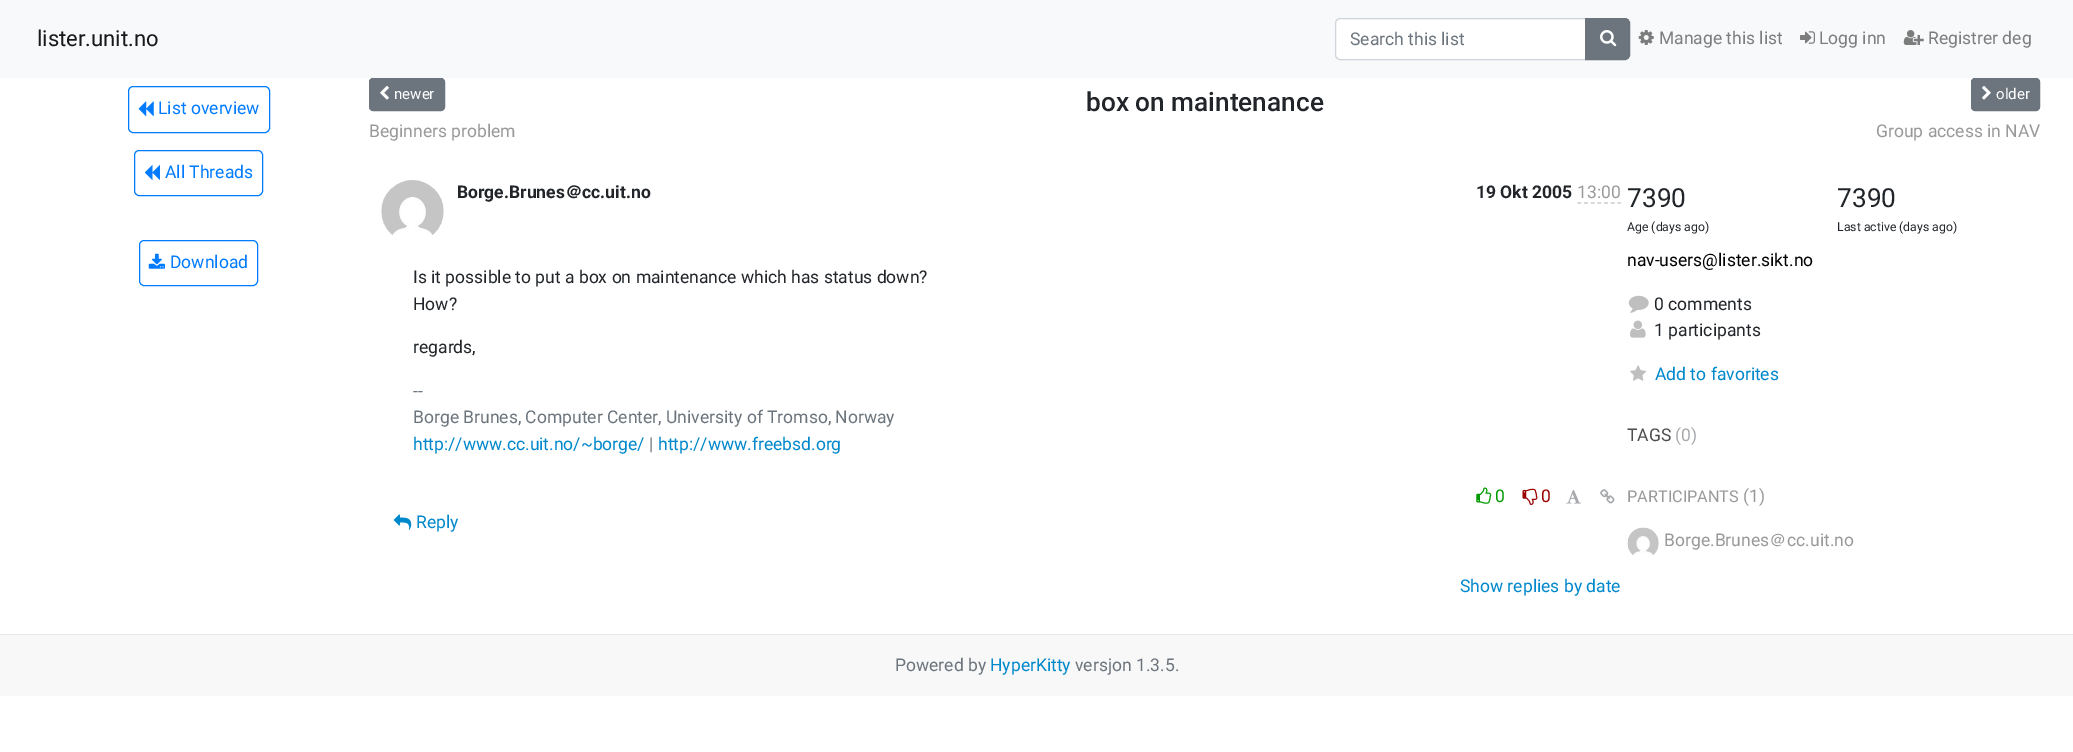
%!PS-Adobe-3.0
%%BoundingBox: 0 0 2073 752
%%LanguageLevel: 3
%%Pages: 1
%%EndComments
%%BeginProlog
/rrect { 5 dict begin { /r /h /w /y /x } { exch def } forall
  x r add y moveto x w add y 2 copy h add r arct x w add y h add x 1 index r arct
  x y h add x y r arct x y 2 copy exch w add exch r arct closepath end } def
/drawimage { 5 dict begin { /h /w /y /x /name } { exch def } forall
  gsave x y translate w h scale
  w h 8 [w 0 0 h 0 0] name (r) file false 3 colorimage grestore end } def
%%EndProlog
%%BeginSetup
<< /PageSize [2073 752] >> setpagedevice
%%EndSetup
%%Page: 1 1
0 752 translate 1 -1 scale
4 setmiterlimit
1 setgray
0 0 2073 752 rectfill
0.973 0.976 0.98 setrgbcolor
0 0 2073 78 rectfill
1 setgray
newpath 1339 19 moveto 1585 19 lineto 1585 59 lineto 1339 59 lineto 1337.5 59 1336 57.5 1336 56 curveto 1336 22 lineto 1336 20.5 1337.5 19 1339 19 curveto closepath fill
0.808 0.831 0.855 setrgbcolor
newpath 1340 18.5 moveto 1585.5 18.5 lineto 1585.5 59.5 lineto 1340 59.5 lineto 1337.5 59.5 1335.5 57.5 1335.5 55 curveto 1335.5 23 lineto 1335.5 20.5 1337.5 18.5 1340 18.5 curveto closepath stroke
0.424 0.459 0.49 setrgbcolor
newpath 1585.5 18.5 moveto 1625 18.5 lineto 1627.5 18.5 1629.5 20.5 1629.5 23 curveto 1629.5 55 lineto 1629.5 57.5 1627.5 59.5 1625 59.5 curveto 1585.5 59.5 lineto closepath gsave fill grestore
stroke
(images/1.raw) 1600 30 17 17 drawimage
(images/2.raw) 1638 30 16 15 drawimage
(images/3.raw) 1800 31 15 13 drawimage
(images/4.raw) 1903 30 21 15 drawimage
0 0.482 1 setrgbcolor
128.5 86.5 141 46 4.5 rrect stroke
(images/5.raw) 138 101 16 16 drawimage
134.5 150.5 128 45 4.5 rrect stroke
(images/6.raw) 145 165 15 15 drawimage
139.5 240.5 118 45 4.5 rrect stroke
(images/7.raw) 148 253 17 16 drawimage
0.424 0.459 0.49 setrgbcolor
369.5 78.5 75 32 3.5 rrect gsave fill grestore
stroke
(images/8.raw) 380 85 9 15 drawimage
1971.5 78.5 68 32 3.5 rrect gsave fill grestore
stroke
(images/9.raw) 1982 85 9 15 drawimage
(images/10.raw) 381 180 63 55 drawimage
0.8 setgray
1.2 setlinewidth
[3.75 2.91] 0 setdash
newpath 1577.5 203 moveto 1621 203 lineto stroke
(images/11.raw) 1476 487 16 17 drawimage
(images/12.raw) 1522 488 16 17 drawimage
(images/13.raw) 1566 490 15 14 drawimage
(images/14.raw) 1600 489 15 15 drawimage
(images/15.raw) 393 514 19 16 drawimage
(images/16.raw) 1628 295 21 18 drawimage
(images/17.raw) 1630 320 16 18 drawimage
(images/18.raw) 1630 365 17 16 drawimage
(images/19.raw) 1627 527 32 30 drawimage
0.973 setgray
0 635 2073 61 rectfill
0.906 setgray
0 634 2073 1 rectfill
/Roboto-Regular [22 0 0 -22 0 0] selectfont
0.098 setgray
37 46 moveto (lister.unit.no) show
/Roboto-Regular [17.5 0 0 -17.5 0 0] selectfont
0.424 0.459 0.49 setrgbcolor
1350 45 moveto (Search this list) show
0.486 0.49 0.49 setrgbcolor
1659 44 moveto (Manage this list) show
1819 44 moveto (Logg inn) show
1928 44 moveto (Registrer deg) show
0 0.482 1 setrgbcolor
158 114 moveto (List overview) show
165 178 moveto (All Threads) show
170 268 moveto (Download) show
/Roboto-Regular [15 0 0 -15 0 0] selectfont
1 setgray
394 99 moveto (newer) show
/Roboto-Medium [26.25 0 0 -26.25 0 0] selectfont
0.129 0.145 0.161 setrgbcolor
1086 111 moveto (box on maintenance) show
/Roboto-Regular [15 0 0 -15 0 0] selectfont
1 setgray
1996 99 moveto (older) show
/Roboto-Regular [17.5 0 0 -17.5 0 0] selectfont
0.6 setgray
369 137 moveto (Beginners problem) show
1876 137 moveto (Group access in NAV) show
/Roboto-Bold [17.5 0 0 -17.5 0 0] selectfont
0.129 0.145 0.161 setrgbcolor
457 198 moveto (Borge.Brunes) show
/WenQuanYiZenHei-Bold [17.5 0 0 -17.5 0 0] selectfont
565 198 moveto (＠) show
/Roboto-Bold [17.5 0 0 -17.5 0 0] selectfont
582 198 moveto (cc.uit.no) show
1476 198 moveto (19 Okt 2005) show
/Roboto-Regular [17.5 0 0 -17.5 0 0] selectfont
0.6 setgray
1577 198 moveto (13:00) show
0.129 0.145 0.161 setrgbcolor
413 283 moveto (Is it possible to put a box on maintenance which has status down?) show
413 310 moveto (How?) show
413 353 moveto (regards,) show
0.424 0.459 0.49 setrgbcolor
413 397 moveto (--) show
413 423 moveto (Borge Brunes, Computer Center, University of Tromso, Norway) show
0 0.533 0.8 setrgbcolor
413 450 moveto (http://www.cc.uit.no/~borge/) show
0.424 0.459 0.49 setrgbcolor
649 450 moveto (|) show
0 0.533 0.8 setrgbcolor
658 450 moveto (http://www.freebsd.org) show
0 0.6 0 setrgbcolor
1495 502 moveto (0) show
0.6 0 0 setrgbcolor
1541 502 moveto (0) show
0 0.533 0.8 setrgbcolor
416 528 moveto (Reply) show
1460 592 moveto (Show replies by date) show
/Roboto-Regular [26.25 0 0 -26.25 0 0] selectfont
0.129 0.145 0.161 setrgbcolor
1627 207 moveto (7390) show
/Roboto-Regular [12.25 0 0 -12.25 0 0] selectfont
1627 231 moveto (Age \(days ago\)) show
/Roboto-Regular [26.25 0 0 -26.25 0 0] selectfont
1837 207 moveto (7390) show
/Roboto-Regular [12.25 0 0 -12.25 0 0] selectfont
1837 231 moveto (Last active \(days ago\)) show
/Roboto-Regular [17.5 0 0 -17.5 0 0] selectfont
0 setgray
1627 266 moveto (nav-users@lister.sikt.no) show
0.129 0.145 0.161 setrgbcolor
1654 310 moveto (0 comments) show
1654 336 moveto (1 participants) show
0 0.533 0.8 setrgbcolor
1655 380 moveto (Add to favorites) show
0.302 setgray
1627 441 moveto (TAGS) show
0.655 0.663 0.675 setrgbcolor
1675 441 moveto (\(0\)) show
/Roboto-Regular [16.25 0 0 -16.25 0 0] selectfont
0.6 setgray
1627 502 moveto (PARTICIPANTS) show
/Roboto-Regular [17.5 0 0 -17.5 0 0] selectfont
1743 502 moveto (\(1\)) show
1664 546 moveto (Borge.Brunes) show
/WenQuanYiZenHei-Medium [17.5 0 0 -17.5 0 0] selectfont
1769 546 moveto (＠) show
/Roboto-Regular [17.5 0 0 -17.5 0 0] selectfont
1787 546 moveto (cc.uit.no) show
0.424 0.459 0.49 setrgbcolor
895 671 moveto (Powered by) show
0 0.533 0.8 setrgbcolor
990 671 moveto (HyperKitty) show
0.424 0.459 0.49 setrgbcolor
1075 671 moveto (versjon 1.3.5.) show
showpage
%%EOF
